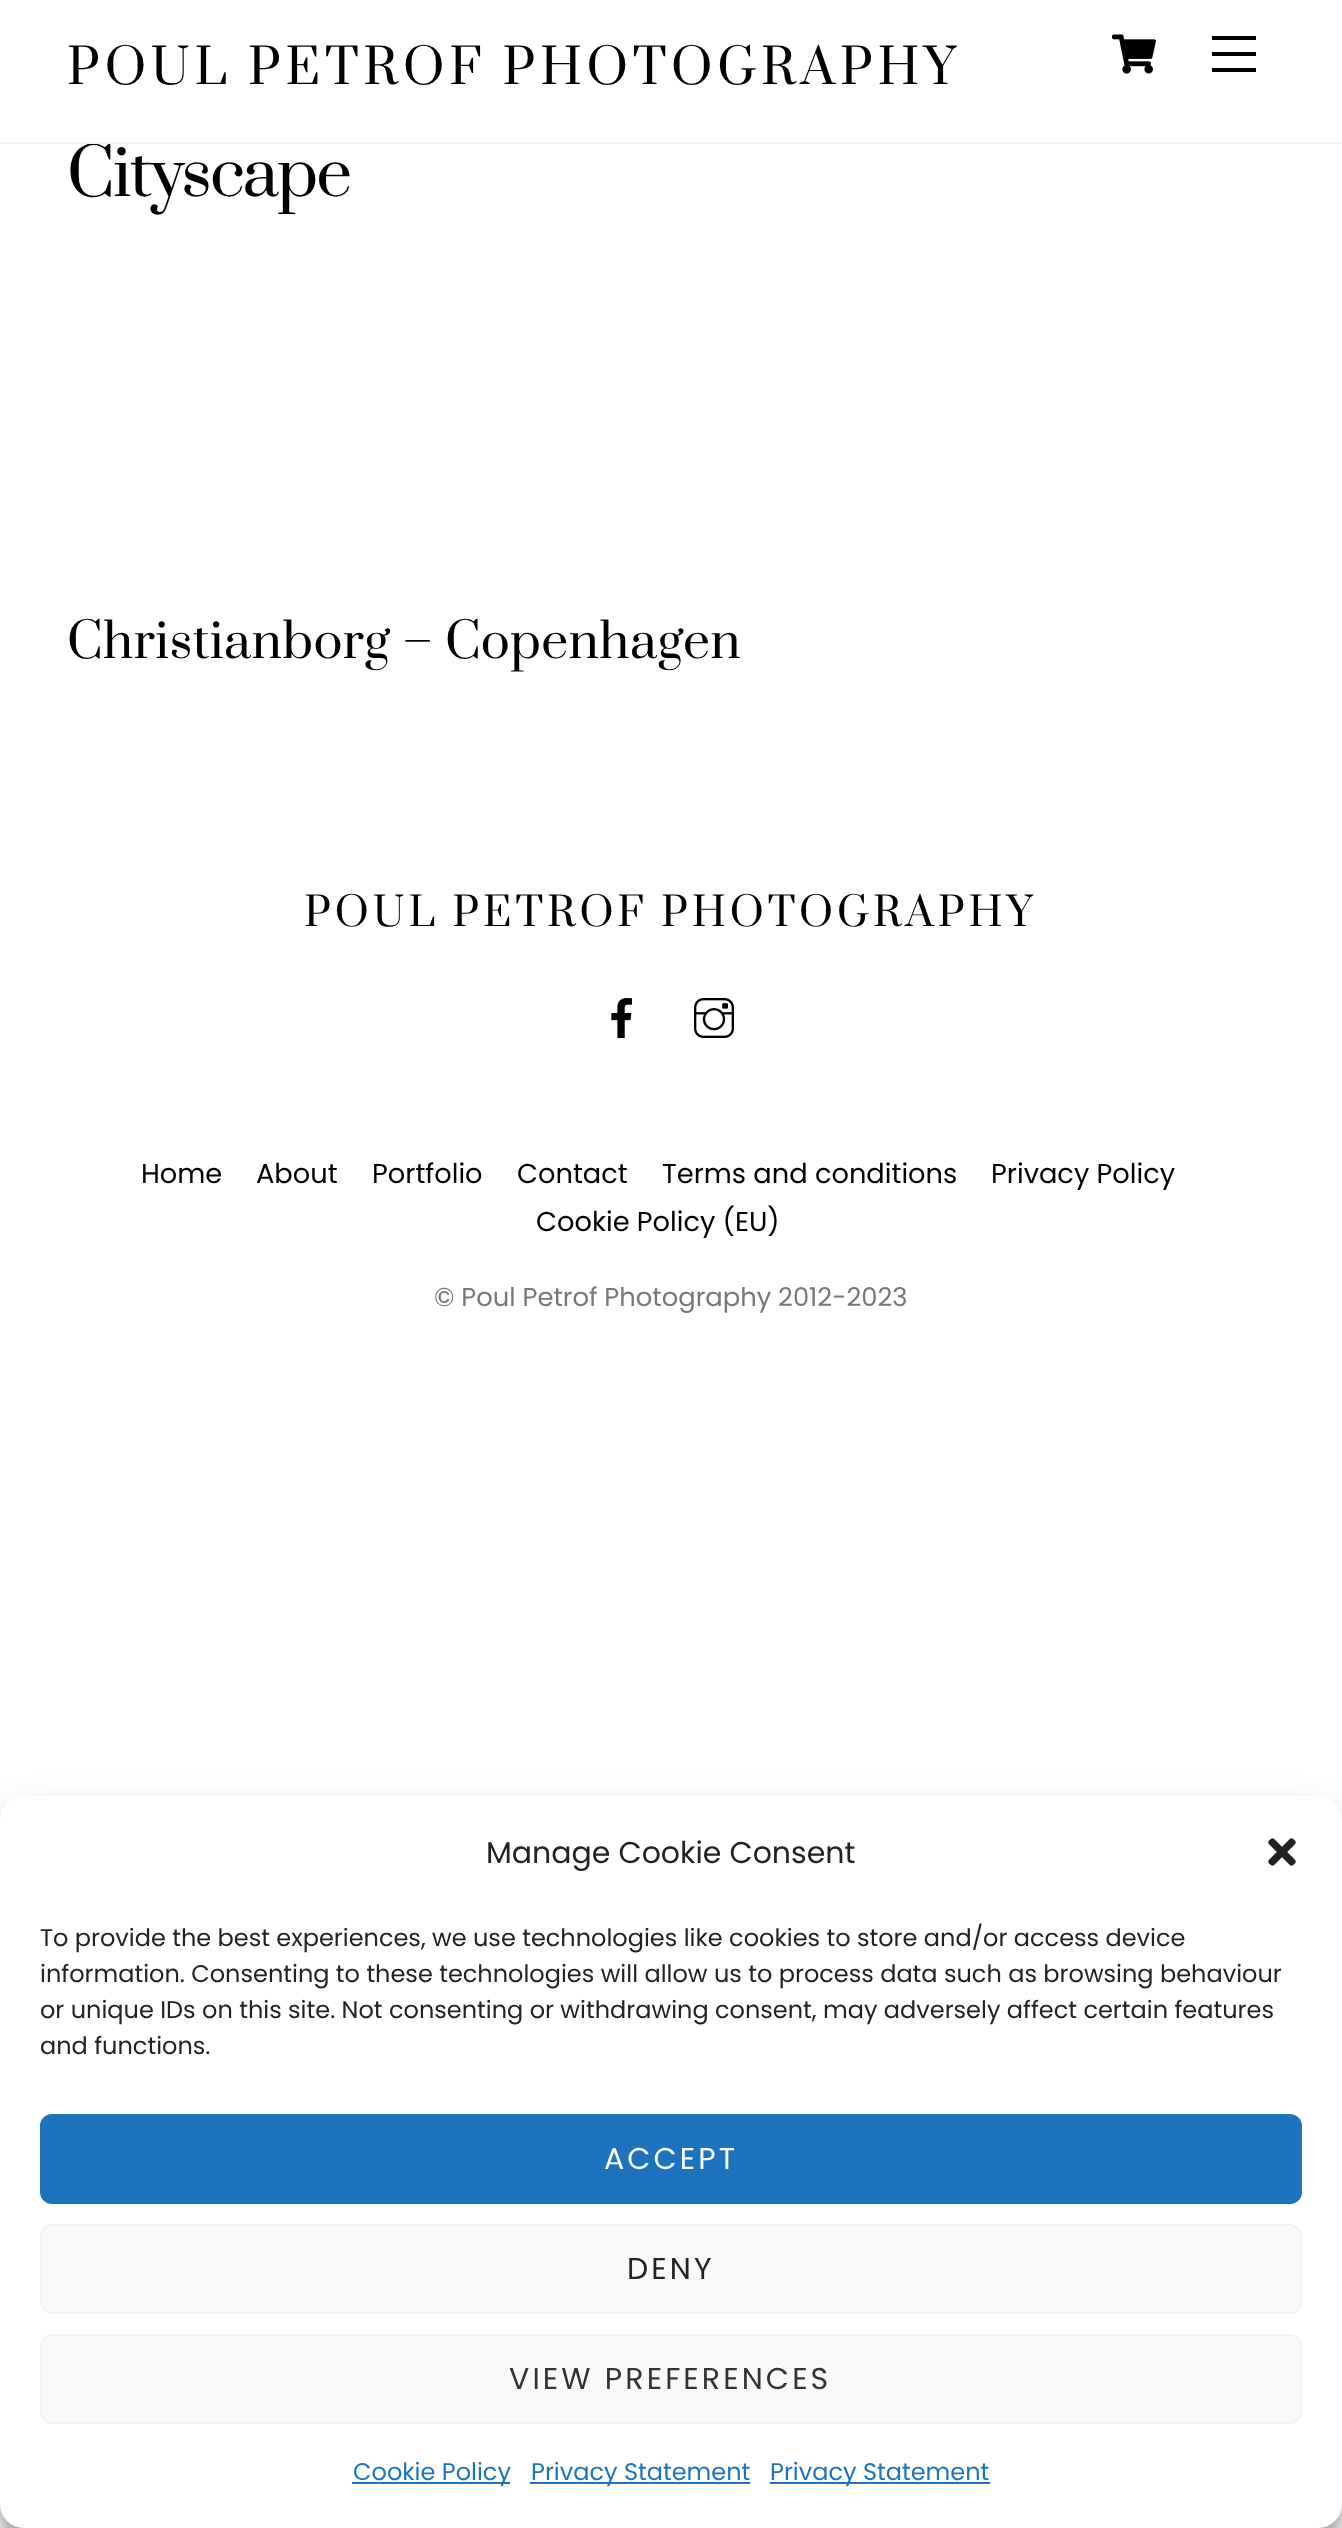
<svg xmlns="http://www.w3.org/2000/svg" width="1342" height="2528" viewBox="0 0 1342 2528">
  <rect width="100%" height="100%" fill="rgb(255,255,255)"/>
  <text x="67" y="196" font-family="Prata" font-size="64" letter-spacing="-1.75" fill="rgb(0,0,0)">Cityscape</text>
  <rect x="0" y="142" width="1342" height="2" fill="rgb(242,242,242)"/>
  <text x="67" y="84" font-family="Prata" font-size="48" letter-spacing="4.8" fill="rgb(0,0,0)">POUL PETROF PHOTOGRAPHY</text>
  <image x="1112" y="34" width="44" height="40" href="pic1.png"/>
  <rect x="1212" y="68" width="44" height="4" fill="rgb(0,0,0)"/>
  <rect x="1212" y="36" width="44" height="4" fill="rgb(0,0,0)"/>
  <rect x="1212" y="52" width="44" height="4" fill="rgb(0,0,0)"/>
  <text x="67" y="658" font-family="Prata" font-size="48" letter-spacing="0.35" fill="rgb(0,0,0)">Christianborg – Copenhagen</text>
  <text x="304" y="926" font-family="Prata" font-size="39.4" letter-spacing="3.9" fill="rgb(0,0,0)">POUL PETROF PHOTOGRAPHY</text>
  <image x="611" y="998" width="21" height="40" href="pic2.png"/>
  <image x="694" y="998" width="40" height="40" href="pic3.png"/>
  <g font-family="Poppins" font-size="27.25" fill="rgb(0,0,0)">
    <text x="141" y="1183">Home</text>
    <text x="256" y="1183">About</text>
    <text x="372" y="1183">Portfolio</text>
    <text x="517" y="1183">Contact</text>
    <text x="662" y="1183">Terms and conditions</text>
    <text x="991" y="1183">Privacy Policy</text>
    <text x="536" y="1231">Cookie Policy (EU)</text>
  </g>
  <text x="434" y="1306" font-family="Poppins" font-size="25.8" fill="rgb(119,119,119)">© Poul Petrof Photography 2012-2023</text>
  <rect x="0" y="1808" width="1342" height="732" rx="24" fill="rgba(0,0,0,0.23)" filter="blur(6px)"/>
  <rect x="0" y="1816" width="1342" height="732" rx="24" fill="rgba(0,0,0,0.19)" filter="blur(20px)"/>
  <rect x="0" y="1796" width="1342" height="732" rx="24" fill="rgb(255,255,255)"/>
  <text x="486" y="1863" font-family="Poppins" font-size="30" fill="rgb(34,34,34)">Manage Cookie Consent</text>
  <image x="1268" y="1838" width="28" height="28" href="pic4.png"/>
  <g font-family="Poppins" font-size="24" fill="rgb(34,34,34)">
    <text>
      <tspan x="40" y="1946">To provide the best experiences, we use technologies like cookies to store and/or access device</tspan>
      <tspan x="40" y="1982">information. Consenting to these technologies will allow us to process data such as browsing behaviour</tspan>
      <tspan x="40" y="2018">or unique IDs on this site. Not consenting or withdrawing consent, may adversely affect certain features</tspan>
      <tspan x="40" y="2054">and functions.</tspan>
    </text>
  </g>
  <rect x="41" y="2115" width="1260" height="88" rx="11" fill="rgb(30,115,190)" stroke="rgb(30,115,190)" stroke-width="2"/>
  <text x="604" y="2169" font-family="Poppins" font-size="30" letter-spacing="3.1" fill="rgb(255,255,255)">ACCEPT</text>
  <rect x="41" y="2225" width="1260" height="88" rx="11" fill="rgb(249,249,249)" stroke="rgb(242,242,242)" stroke-width="2"/>
  <text x="627" y="2279" font-family="Poppins" font-size="30" letter-spacing="3.1" fill="rgb(34,34,34)">DENY</text>
  <rect x="41" y="2335" width="1260" height="88" rx="11" fill="rgb(249,249,249)" stroke="rgb(242,242,242)" stroke-width="2"/>
  <text x="509" y="2389" font-family="Poppins" font-size="30" letter-spacing="3.1" fill="rgb(51,51,51)">VIEW PREFERENCES</text>
  <rect x="352" y="2482" width="158" height="2" fill="rgb(30,115,190)"/>
  <text x="353" y="2480" font-family="Poppins" font-size="24" fill="rgb(30,115,190)">Cookie Policy</text>
  <rect x="530" y="2482" width="220" height="2" fill="rgb(30,115,190)"/>
  <text x="531" y="2480" font-family="Poppins" font-size="24" fill="rgb(30,115,190)">Privacy Statement</text>
  <rect x="770" y="2482" width="220" height="2" fill="rgb(30,115,190)"/>
  <text x="770" y="2480" font-family="Poppins" font-size="24" fill="rgb(30,115,190)">Privacy Statement</text>
</svg>
